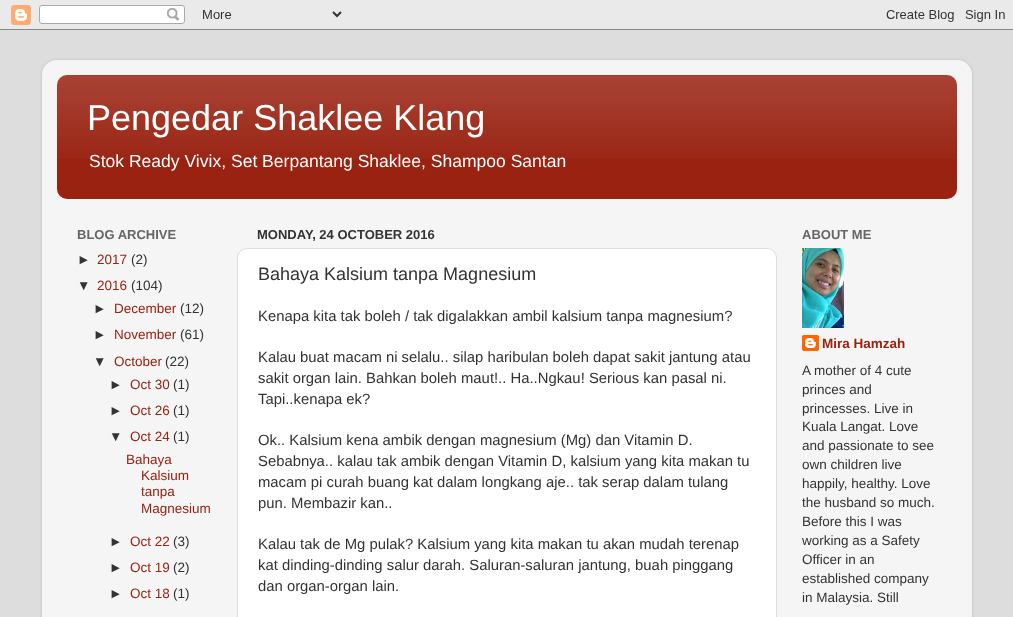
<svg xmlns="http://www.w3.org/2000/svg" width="1013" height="617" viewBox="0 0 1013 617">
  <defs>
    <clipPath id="clip1"><path d="M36 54H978V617H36ZM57 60H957C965.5 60 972 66.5 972 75V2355C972 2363.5 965.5 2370 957 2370H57C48.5 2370 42 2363.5 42 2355V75C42 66.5 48.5 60 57 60Z" clip-rule="evenodd"/></clipPath>
  </defs>
  <rect width="100%" height="100%" fill="rgb(221,221,221)"/>
  <image x="0" y="0" width="1013" height="30" href="pic1.png"/>
  <g clip-path="url(#clip1)">
    <rect x="42" y="60" width="930" height="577" rx="15" fill="rgba(0,0,0,0.15)" filter="blur(1.5px)"/>
  </g>
  <image x="42" y="60" width="930" height="557" href="pic2.png"/>
  <rect x="57" y="75" width="900" height="124" rx="10" fill="rgb(153,34,17)"/>
  <image x="57" y="75" width="900" height="84" href="pic3.png"/>
  <text x="87" y="130" font-family="Liberation Sans" font-size="36" fill="rgb(255,255,255)">Pengedar Shaklee Klang</text>
  <text x="89" y="167" font-family="Liberation Sans" font-size="17.55" fill="rgb(255,255,255)">Stok Ready Vivix, Set Berpantang Shaklee, Shampoo Santan</text>
  <text x="77" y="239" font-family="Liberation Sans" font-size="13" font-weight="bold" fill="rgb(102,102,102)">BLOG ARCHIVE</text>
  <text x="77" y="264" font-family="Liberation Sans" font-size="13.5" fill="rgb(51,51,51)">►</text>
  <text x="97" y="264" font-family="Liberation Sans" font-size="13.5" fill="rgb(153,34,17)">2017</text>
  <g font-family="Liberation Sans" font-size="13.5" fill="rgb(51,51,51)">
    <text x="131" y="264">(2)</text>
    <text x="77" y="290">▼</text>
  </g>
  <text x="97" y="290" font-family="Liberation Sans" font-size="13.5" fill="rgb(153,34,17)">2016</text>
  <g font-family="Liberation Sans" font-size="13.5" fill="rgb(51,51,51)">
    <text x="131" y="290">(104)</text>
    <text x="93" y="313">►</text>
  </g>
  <text x="114" y="313" font-family="Liberation Sans" font-size="13.5" fill="rgb(153,34,17)">December</text>
  <g font-family="Liberation Sans" font-size="13.5" fill="rgb(51,51,51)">
    <text x="180" y="313">(12)</text>
    <text x="93" y="339">►</text>
  </g>
  <text x="114" y="339" font-family="Liberation Sans" font-size="13.5" fill="rgb(153,34,17)">November</text>
  <g font-family="Liberation Sans" font-size="13.5" fill="rgb(51,51,51)">
    <text x="180" y="339">(61)</text>
    <text x="93" y="366">▼</text>
  </g>
  <text x="114" y="366" font-family="Liberation Sans" font-size="13.5" fill="rgb(153,34,17)">October</text>
  <g font-family="Liberation Sans" font-size="13.5" fill="rgb(51,51,51)">
    <text x="165" y="366">(22)</text>
    <text x="109" y="389">►</text>
  </g>
  <text x="130" y="389" font-family="Liberation Sans" font-size="13.5" fill="rgb(153,34,17)">Oct 30</text>
  <g font-family="Liberation Sans" font-size="13.5" fill="rgb(51,51,51)">
    <text x="173" y="389">(1)</text>
    <text x="109" y="415">►</text>
  </g>
  <text x="130" y="415" font-family="Liberation Sans" font-size="13.5" fill="rgb(153,34,17)">Oct 26</text>
  <g font-family="Liberation Sans" font-size="13.5" fill="rgb(51,51,51)">
    <text x="173" y="415">(1)</text>
    <text x="109" y="441">▼</text>
  </g>
  <text x="130" y="441" font-family="Liberation Sans" font-size="13.5" fill="rgb(153,34,17)">Oct 24</text>
  <text x="173" y="441" font-family="Liberation Sans" font-size="13.5" fill="rgb(51,51,51)">(1)</text>
  <g font-family="Liberation Sans" font-size="13.5" fill="rgb(153,34,17)">
    <text x="126" y="464">Bahaya</text>
    <text>
      <tspan x="141" y="480">Kalsium</tspan>
      <tspan x="141" y="496">tanpa</tspan>
      <tspan x="141" y="513">Magnesium</tspan>
    </text>
  </g>
  <text x="109" y="546" font-family="Liberation Sans" font-size="13.5" fill="rgb(51,51,51)">►</text>
  <text x="130" y="546" font-family="Liberation Sans" font-size="13.5" fill="rgb(153,34,17)">Oct 22</text>
  <g font-family="Liberation Sans" font-size="13.5" fill="rgb(51,51,51)">
    <text x="173" y="546">(3)</text>
    <text x="109" y="572">►</text>
  </g>
  <text x="130" y="572" font-family="Liberation Sans" font-size="13.5" fill="rgb(153,34,17)">Oct 19</text>
  <g font-family="Liberation Sans" font-size="13.5" fill="rgb(51,51,51)">
    <text x="173" y="572">(2)</text>
    <text x="109" y="598">►</text>
  </g>
  <text x="130" y="598" font-family="Liberation Sans" font-size="13.5" fill="rgb(153,34,17)">Oct 18</text>
  <text x="173" y="598" font-family="Liberation Sans" font-size="13.5" fill="rgb(51,51,51)">(1)</text>
  <text x="257" y="239" font-family="Liberation Sans" font-size="13" font-weight="bold" fill="rgb(51,51,51)">MONDAY, 24 OCTOBER 2016</text>
  <rect x="237.5" y="248.5" width="539" height="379" rx="9.5" fill="rgb(255,255,255)" stroke="rgb(221,221,221)"/>
  <text x="258" y="280" font-family="Liberation Sans" font-size="18" fill="rgb(51,51,51)">Bahaya Kalsium tanpa Magnesium</text>
  <g font-family="Liberation Sans" font-size="14.85" fill="rgb(51,51,51)">
    <text x="258" y="321">Kenapa kita tak boleh / tak digalakkan ambil kalsium tanpa magnesium?</text>
    <text>
      <tspan x="258" y="362">Kalau buat macam ni selalu.. silap haribulan boleh dapat sakit jantung atau</tspan>
      <tspan x="258" y="383">sakit organ lain. Bahkan boleh maut!.. Ha..Ngkau! Serious kan pasal ni.</tspan>
      <tspan x="258" y="404">Tapi..kenapa ek?</tspan>
    </text>
    <text>
      <tspan x="258" y="445">Ok.. Kalsium kena ambik dengan magnesium (Mg) dan Vitamin D.</tspan>
      <tspan x="258" y="466">Sebabnya.. kalau tak ambik dengan Vitamin D, kalsium yang kita makan tu</tspan>
      <tspan x="258" y="487">macam pi curah buang kat dalam longkang aje.. tak serap dalam tulang</tspan>
      <tspan x="258" y="508">pun. Membazir kan..</tspan>
    </text>
    <text>
      <tspan x="258" y="549">Kalau tak de Mg pulak? Kalsium yang kita makan tu akan mudah terenap</tspan>
      <tspan x="258" y="570">kat dinding-dinding salur darah. Saluran-saluran jantung, buah pinggang</tspan>
      <tspan x="258" y="591">dan organ-organ lain.</tspan>
    </text>
  </g>
  <text x="802" y="239" font-family="Liberation Sans" font-size="13" font-weight="bold" fill="rgb(102,102,102)">ABOUT ME</text>
  <image x="802" y="248" width="42" height="80" href="pic4.png"/>
  <image x="802" y="335" width="17" height="16" href="pic5.png"/>
  <text x="822" y="348" font-family="Liberation Sans" font-size="13.5" font-weight="bold" fill="rgb(153,34,17)">Mira Hamzah</text>
  <g font-family="Liberation Sans" font-size="13.5" fill="rgb(51,51,51)">
    <text>
      <tspan x="802" y="375">A mother of 4 cute</tspan>
      <tspan x="802" y="394">princes and</tspan>
      <tspan x="802" y="413">princesses. Live in</tspan>
      <tspan x="802" y="431">Kuala Langat. Love</tspan>
      <tspan x="802" y="450">and passionate to see</tspan>
      <tspan x="802" y="469">own children live</tspan>
      <tspan x="802" y="488">happily, healthy. Love</tspan>
      <tspan x="802" y="507">the husband so much.</tspan>
      <tspan x="802" y="526">Before this I was</tspan>
      <tspan x="802" y="545">working as a Safety</tspan>
      <tspan x="802" y="564">Officer in an</tspan>
      <tspan x="802" y="583">established company</tspan>
      <tspan x="802" y="602">in Malaysia. Still</tspan>
    </text>
  </g>
</svg>
